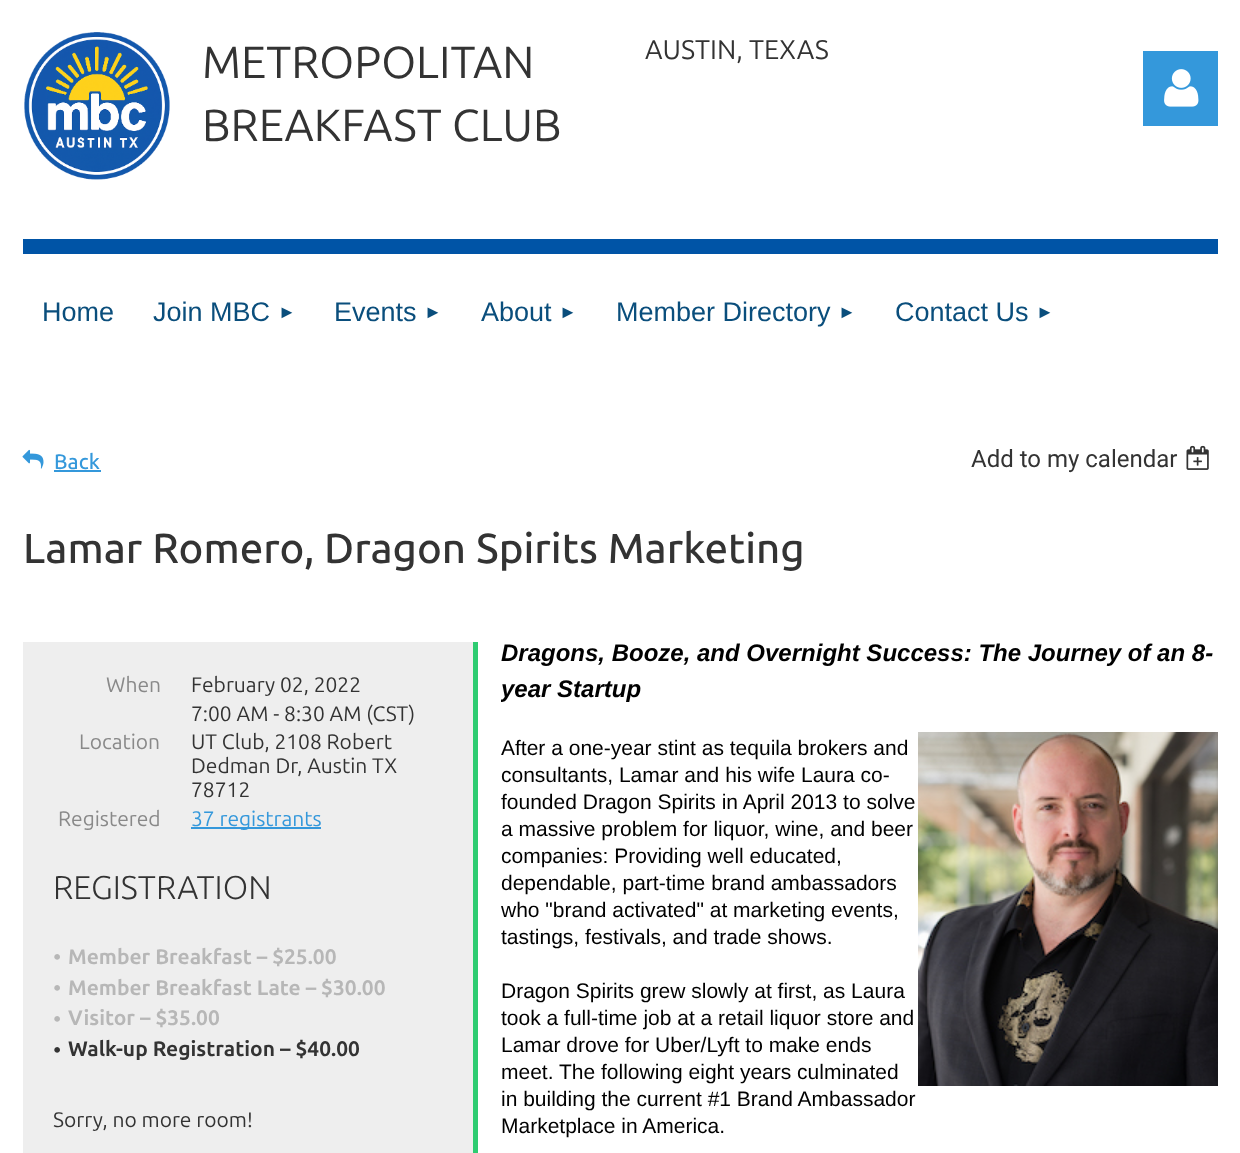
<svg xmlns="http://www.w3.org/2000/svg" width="1240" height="1153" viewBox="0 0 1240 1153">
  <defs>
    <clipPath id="clip1"><rect x="501" y="633" width="717" height="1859"/></clipPath>
  </defs>
  <rect width="100%" height="100%" fill="rgb(255,255,255)"/>
  <image x="24" y="32" width="146" height="148" href="pic1.png"/>
  <g font-family="Ubuntu" font-size="45" fill="rgb(51,51,51)">
    <text>
      <tspan x="202" y="78">METROPOLITAN</tspan>
      <tspan x="202" y="141">BREAKFAST CLUB</tspan>
    </text>
  </g>
  <text x="645" y="59" font-family="Ubuntu" font-size="27" fill="rgb(51,51,51)">AUSTIN, TEXAS</text>
  <rect x="1143" y="51" width="75" height="75" fill="rgb(52,152,219)"/>
  <image x="1164" y="69" width="35" height="38" href="pic2.png"/>
  <rect x="23" y="239" width="1195" height="15" fill="rgb(0,84,166)"/>
  <g font-family="Liberation Sans" font-size="27" fill="rgb(10,78,124)">
    <text x="42" y="321">Home</text>
    <text x="153" y="321">Join MBC</text>
  </g>
  <text x="278" y="318" font-family="Liberation Sans" font-size="18" fill="rgb(10,78,124)">►</text>
  <text x="334" y="321" font-family="Liberation Sans" font-size="27" fill="rgb(10,78,124)">Events</text>
  <text x="424" y="318" font-family="Liberation Sans" font-size="18" fill="rgb(10,78,124)">►</text>
  <text x="481" y="321" font-family="Liberation Sans" font-size="27" fill="rgb(10,78,124)">About</text>
  <text x="559" y="318" font-family="Liberation Sans" font-size="18" fill="rgb(10,78,124)">►</text>
  <text x="616" y="321" font-family="Liberation Sans" font-size="27" fill="rgb(10,78,124)">Member Directory</text>
  <text x="838" y="318" font-family="Liberation Sans" font-size="18" fill="rgb(10,78,124)">►</text>
  <text x="895" y="321" font-family="Liberation Sans" font-size="27" fill="rgb(10,78,124)">Contact Us</text>
  <text x="1036" y="318" font-family="Liberation Sans" font-size="18" fill="rgb(10,78,124)">►</text>
  <image x="22" y="449" width="22" height="20" href="pic3.png"/>
  <text x="54" y="469" font-family="Ubuntu" font-size="21" font-weight="500" fill="rgb(52,152,219)">Back</text>
  <rect x="54" y="470" width="47" height="2" fill="rgb(52,152,219)"/>
  <text x="971" y="467" font-family="Roboto" font-size="24" fill="rgb(51,51,51)">Add to my calendar</text>
  <image x="1186" y="445" width="23" height="25" href="pic4.png"/>
  <text x="23" y="563" font-family="Ubuntu" font-size="42" font-weight="500" fill="rgb(51,51,51)">Lamar Romero, Dragon Spirits Marketing</text>
  <rect x="23" y="642" width="450" height="511" fill="rgb(238,238,238)"/>
  <rect x="473" y="642" width="5" height="511" fill="rgb(46,204,113)"/>
  <text x="106" y="692" font-family="Ubuntu" font-size="21" fill="rgb(137,137,137)">When</text>
  <g font-family="Ubuntu" font-size="21" fill="rgb(51,51,51)">
    <text>
      <tspan x="191" y="692">February 02, 2022</tspan>
      <tspan x="191" y="721">7:00 AM - 8:30 AM (CST)</tspan>
    </text>
  </g>
  <text x="79" y="749" font-family="Ubuntu" font-size="21" fill="rgb(137,137,137)">Location</text>
  <g font-family="Ubuntu" font-size="21" fill="rgb(51,51,51)">
    <text>
      <tspan x="191" y="749">UT Club, 2108 Robert</tspan>
      <tspan x="191" y="773">Dedman Dr, Austin TX</tspan>
      <tspan x="191" y="797">78712</tspan>
    </text>
  </g>
  <text x="58" y="826" font-family="Ubuntu" font-size="21" fill="rgb(137,137,137)">Registered</text>
  <rect x="191" y="827" width="130" height="2" fill="rgb(52,152,219)"/>
  <text x="191" y="826" font-family="Ubuntu" font-size="21" fill="rgb(52,152,219)">37 registrants</text>
  <text x="53" y="899" font-family="Ubuntu" font-size="33" font-weight="300" fill="rgb(51,51,51)">REGISTRATION</text>
  <text x="53" y="965" font-family="Ubuntu" font-size="23" fill="rgb(183,183,183)">•</text>
  <text x="68" y="964" font-family="Ubuntu" font-size="21" font-weight="bold" fill="rgb(183,183,183)">Member Breakfast – $25.00</text>
  <text x="53" y="996" font-family="Ubuntu" font-size="23" fill="rgb(183,183,183)">•</text>
  <text x="68" y="995" font-family="Ubuntu" font-size="21" font-weight="bold" fill="rgb(183,183,183)">Member Breakfast Late – $30.00</text>
  <text x="53" y="1027" font-family="Ubuntu" font-size="23" fill="rgb(183,183,183)">•</text>
  <text x="68" y="1025" font-family="Ubuntu" font-size="21" font-weight="bold" fill="rgb(183,183,183)">Visitor – $35.00</text>
  <text x="53" y="1058" font-family="Ubuntu" font-size="23" fill="rgb(51,51,51)">•</text>
  <text x="68" y="1056" font-family="Ubuntu" font-size="21" font-weight="bold" fill="rgb(51,51,51)">Walk-up Registration – $40.00</text>
  <text x="53" y="1127" font-family="Ubuntu" font-size="21" fill="rgb(51,51,51)">Sorry, no more room!</text>
  <text x="501" y="661" font-family="Liberation Sans" font-size="24" font-weight="bold" font-style="italic" fill="rgb(0,0,0)">Dragons, Booze, and Overnight Success: The Journey of an 8-</text>
  <g clip-path="url(#clip1)">
    <text x="501" y="697" font-family="Liberation Sans" font-size="24" font-weight="bold" font-style="italic" fill="rgb(0,0,0)">year Startup</text>
  </g>
  <g font-family="Liberation Sans" font-size="21" fill="rgb(0,0,0)">
    <text>
      <tspan x="501" y="755">After a one-year stint as tequila brokers and</tspan>
      <tspan x="501" y="782">consultants, Lamar and his wife Laura co-</tspan>
      <tspan x="501" y="809">founded Dragon Spirits in April 2013 to solve</tspan>
      <tspan x="501" y="836">a massive problem for liquor, wine, and beer</tspan>
      <tspan x="501" y="863">companies: Providing well educated,</tspan>
      <tspan x="501" y="890">dependable, part-time brand ambassadors</tspan>
      <tspan x="501" y="917">who "brand activated" at marketing events,</tspan>
      <tspan x="501" y="944">tastings, festivals, and trade shows.</tspan>
    </text>
  </g>
  <image x="918" y="732" width="300" height="354" href="pic5.png"/>
  <g font-family="Liberation Sans" font-size="21" fill="rgb(0,0,0)">
    <text>
      <tspan x="501" y="998">Dragon Spirits grew slowly at first, as Laura</tspan>
      <tspan x="501" y="1025">took a full-time job at a retail liquor store and</tspan>
      <tspan x="501" y="1052">Lamar drove for Uber/Lyft to make ends</tspan>
      <tspan x="501" y="1079">meet. The following eight years culminated</tspan>
      <tspan x="501" y="1106">in building the current #1 Brand Ambassador</tspan>
      <tspan x="501" y="1133">Marketplace in America.</tspan>
    </text>
  </g>
</svg>
